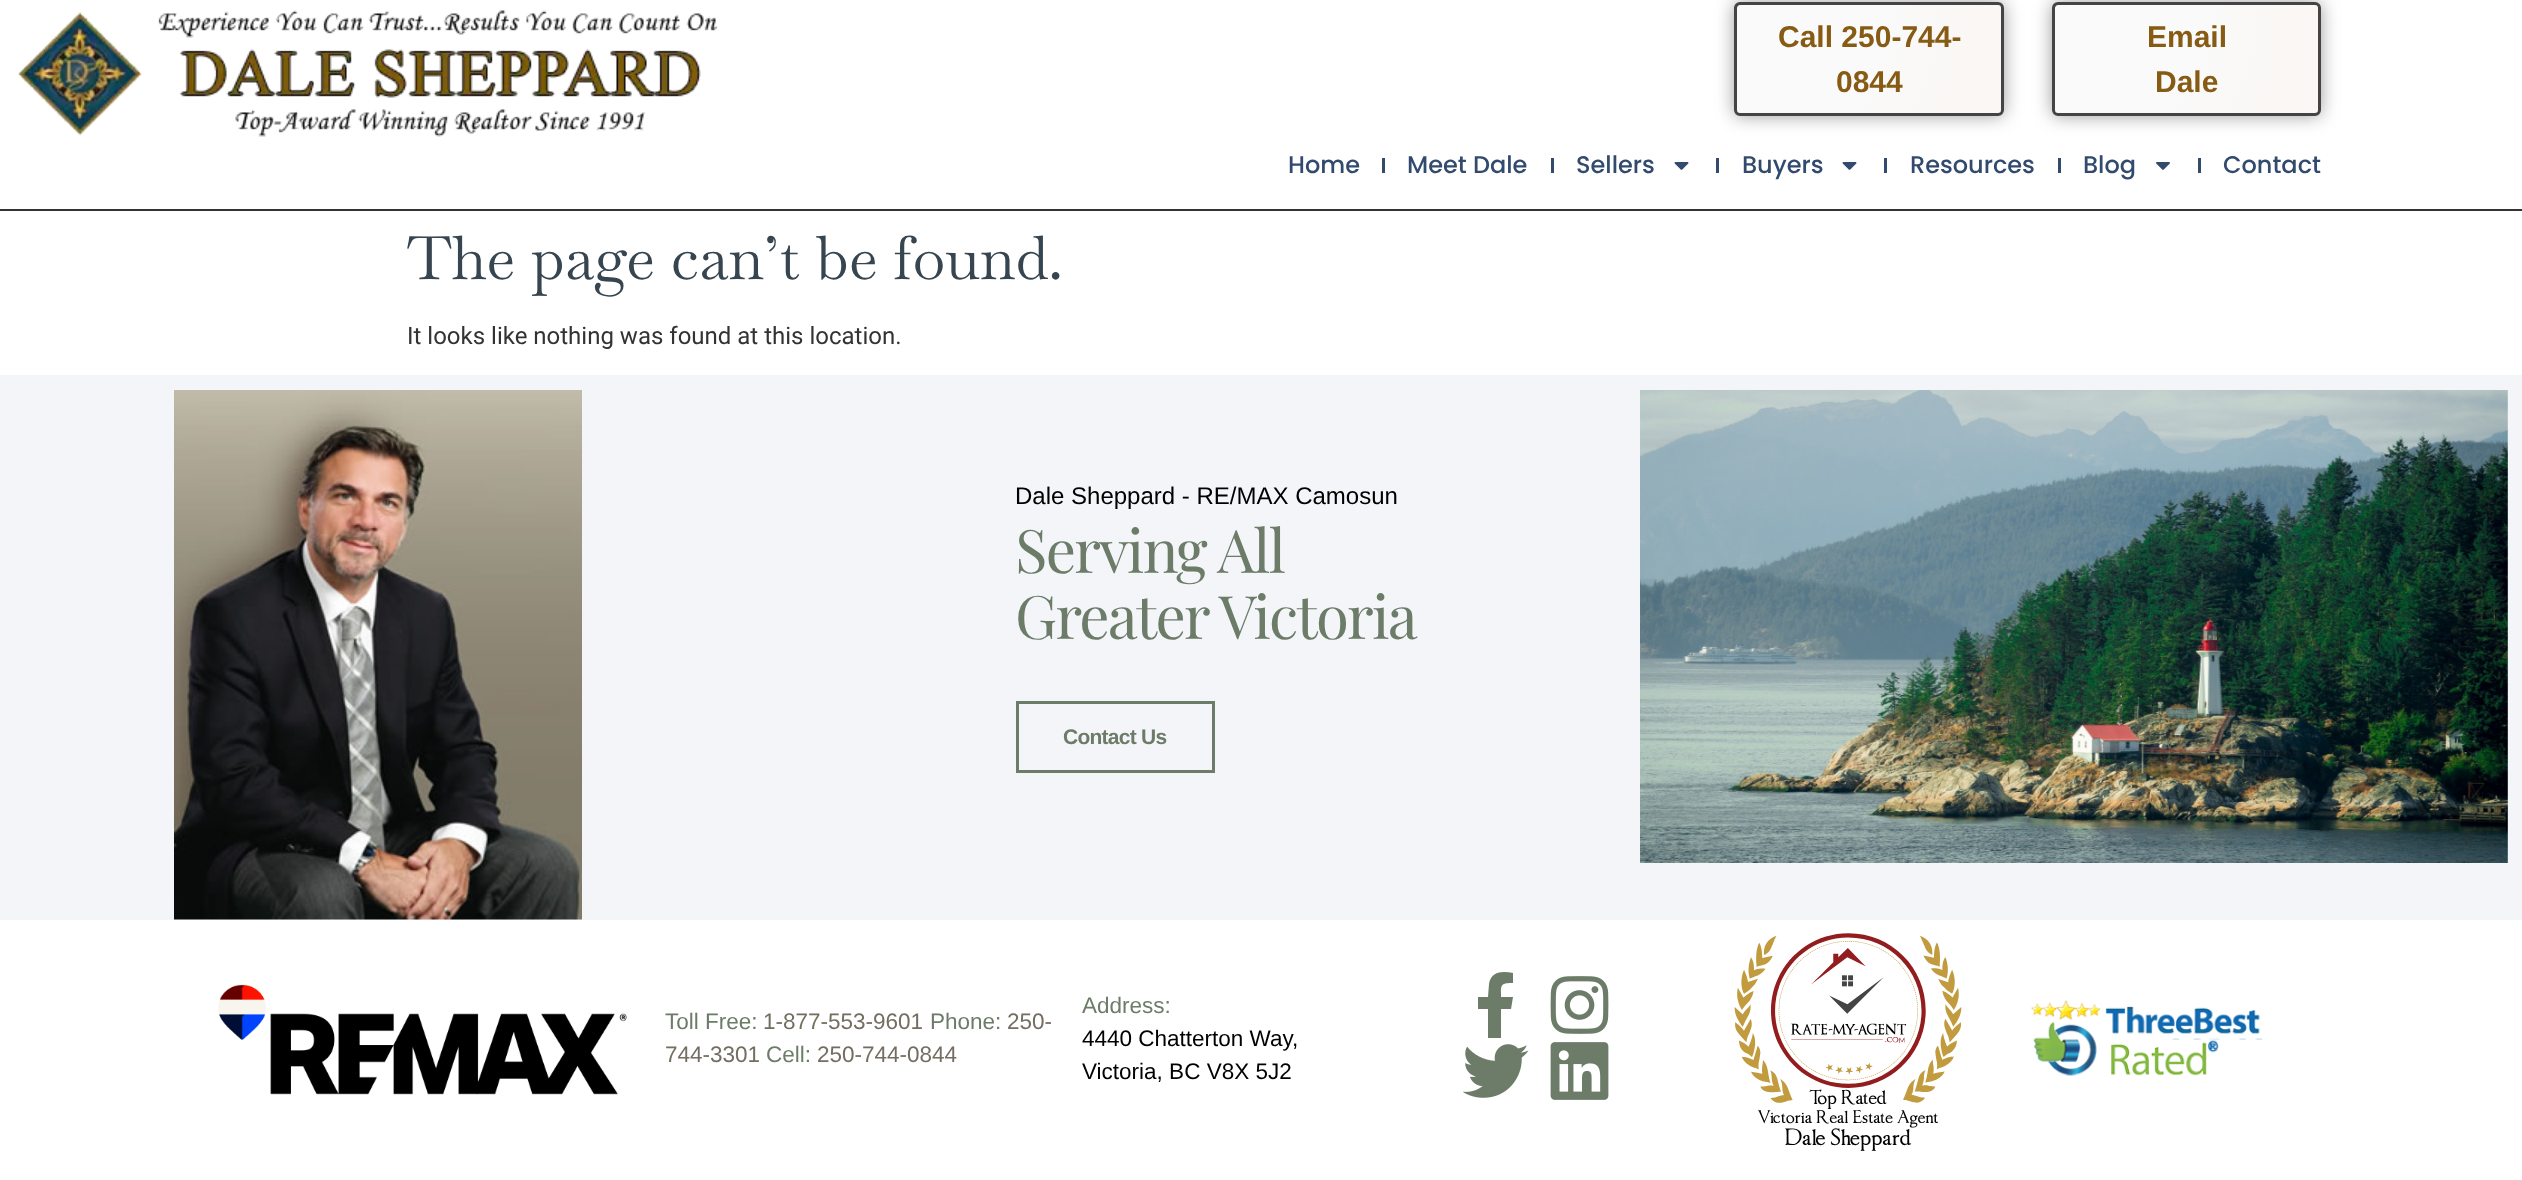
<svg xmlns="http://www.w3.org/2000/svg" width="2522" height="1180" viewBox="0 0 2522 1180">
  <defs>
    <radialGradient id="g1" gradientUnits="userSpaceOnUse" cx="1777" cy="21" r="242"><stop offset="0.45" stop-color="rgb(250,250,250)"/><stop offset="0.84" stop-color="rgb(250,247,244)"/></radialGradient>
    <radialGradient id="g2" gradientUnits="userSpaceOnUse" cx="2094" cy="21" r="241"><stop offset="0.45" stop-color="rgb(250,250,250)"/><stop offset="0.84" stop-color="rgb(250,247,244)"/></radialGradient>
  </defs>
  <rect width="100%" height="100%" fill="rgb(255,255,255)"/>
  <rect x="0" y="209" width="2522" height="2" fill="rgb(51,51,51)"/>
  <image x="18" y="10" width="700" height="127" href="pic1.png"/>
  <rect x="1734" y="2" width="270" height="114" rx="6" fill="rgba(60,60,60,0.5)" filter="blur(9px)"/>
  <rect x="1737" y="5" width="264" height="108" fill="url(#g1)"/>
  <rect x="1735.5" y="3.5" width="267" height="111" rx="4.5" fill="none" stroke="rgb(68,68,68)" stroke-width="3"/>
  <g font-family="Liberation Sans" font-size="30" font-weight="bold" fill="rgb(135,91,20)">
    <text x="1778" y="47">Call 250-744-</text>
    <text x="1836" y="92">0844</text>
  </g>
  <rect x="2052" y="2" width="269" height="114" rx="6" fill="rgba(60,60,60,0.5)" filter="blur(9px)"/>
  <rect x="2055" y="5" width="263" height="108" fill="url(#g2)"/>
  <rect x="2053.5" y="3.5" width="266" height="111" rx="4.5" fill="none" stroke="rgb(68,68,68)" stroke-width="3"/>
  <g font-family="Liberation Sans" font-size="30" font-weight="bold" fill="rgb(135,91,20)">
    <text x="2147" y="47">Email</text>
    <text x="2155" y="92">Dale</text>
  </g>
  <text x="1288" y="173" font-family="Poppins" font-size="24" font-weight="500" fill="rgb(50,74,109)">Home</text>
  <rect x="1382" y="158" width="3" height="15" fill="rgb(50,74,109)"/>
  <text x="1407" y="173" font-family="Poppins" font-size="24" font-weight="500" fill="rgb(50,74,109)">Meet Dale</text>
  <rect x="1551" y="158" width="3" height="15" fill="rgb(50,74,109)"/>
  <text x="1576" y="173" font-family="Poppins" font-size="24" font-weight="500" fill="rgb(50,74,109)">Sellers</text>
  <image x="1674" y="162" width="15" height="8" href="pic2.png"/>
  <rect x="1716" y="158" width="3" height="15" fill="rgb(50,74,109)"/>
  <text x="1742" y="173" font-family="Poppins" font-size="24" font-weight="500" fill="rgb(50,74,109)">Buyers</text>
  <image x="1842" y="162" width="15" height="8" href="pic2.png"/>
  <rect x="1884" y="158" width="3" height="15" fill="rgb(50,74,109)"/>
  <text x="1910" y="173" font-family="Poppins" font-size="24" font-weight="500" fill="rgb(50,74,109)">Resources</text>
  <rect x="2058" y="158" width="3" height="15" fill="rgb(50,74,109)"/>
  <text x="2083" y="173" font-family="Poppins" font-size="24" font-weight="500" fill="rgb(50,74,109)">Blog</text>
  <image x="2156" y="162" width="14" height="8" href="pic3.png"/>
  <rect x="2198" y="158" width="3" height="15" fill="rgb(50,74,109)"/>
  <text x="2223" y="173" font-family="Poppins" font-size="24" font-weight="500" fill="rgb(50,74,109)">Contact</text>
  <text x="407" y="279" font-family="Baskervville" font-size="60" fill="rgb(54,69,79)">The page can’t be found.</text>
  <text x="407" y="344" font-family="Roboto" font-size="24" fill="rgb(51,51,51)">It looks like nothing was found at this location.</text>
  <rect x="0" y="375" width="2522" height="545" fill="rgb(243,245,248)"/>
  <image x="174" y="390" width="408" height="530" href="pic4.png"/>
  <text x="1015" y="504" font-family="Liberation Sans" font-size="24" fill="rgb(0,0,0)">Dale Sheppard - RE/MAX Camosun</text>
  <g font-family="Playfair Display" font-size="60" letter-spacing="-1.75" fill="rgb(108,124,105)">
    <text>
      <tspan x="1015" y="573">Serving All</tspan>
      <tspan x="1015" y="639">Greater Victoria</tspan>
    </text>
  </g>
  <rect x="1017.5" y="702.5" width="196" height="69" fill="none" stroke="rgb(108,124,105)" stroke-width="3"/>
  <text x="1063" y="744" font-family="Liberation Sans" font-size="21" font-weight="bold" letter-spacing="-0.75" fill="rgb(108,124,105)">Contact Us</text>
  <image x="1640" y="390" width="868" height="473" href="pic5.png"/>
  <image x="218" y="984" width="409" height="111" href="pic6.png"/>
  <text x="665" y="1029" font-family="Liberation Sans" font-size="22.5" fill="rgb(108,124,105)">Toll Free:</text>
  <text x="763" y="1029" font-family="Liberation Sans" font-size="22.5" fill="rgb(115,110,97)">1-877-553-9601</text>
  <text x="930" y="1029" font-family="Liberation Sans" font-size="22.5" fill="rgb(108,124,105)">Phone:</text>
  <g font-family="Liberation Sans" font-size="22.5" fill="rgb(115,110,97)">
    <text x="1007" y="1029">250-</text>
    <text x="665" y="1062">744-3301</text>
  </g>
  <text x="766" y="1062" font-family="Liberation Sans" font-size="22.5" fill="rgb(108,124,105)">Cell:</text>
  <text x="817" y="1062" font-family="Liberation Sans" font-size="22.5" fill="rgb(115,110,97)">250-744-0844</text>
  <text x="1082" y="1013" font-family="Liberation Sans" font-size="22.5" fill="rgb(108,124,105)">Address:</text>
  <g font-family="Liberation Sans" font-size="22.5" fill="rgb(0,0,0)">
    <text>
      <tspan x="1082" y="1046">4440 Chatterton Way,</tspan>
      <tspan x="1082" y="1079">Victoria, BC V8X 5J2</tspan>
    </text>
  </g>
  <path d="M1511 1009L1513 997H1501C1501 985 1500 983 1513 983V973C1503 971 1491 971 1489 984L1488 997H1478V1009H1488V1038H1501V1009Z" fill="rgb(108,124,105)"/>
  <image x="1550" y="976" width="59" height="58" href="pic7.png"/>
  <image x="1463" y="1044" width="66" height="54" href="pic8.png"/>
  <image x="1550" y="1042" width="59" height="58" href="pic9.png"/>
  <image x="1734" y="933" width="228" height="218" href="pic10.png"/>
  <image x="2031" y="1000" width="232" height="76" href="pic11.png"/>
</svg>
